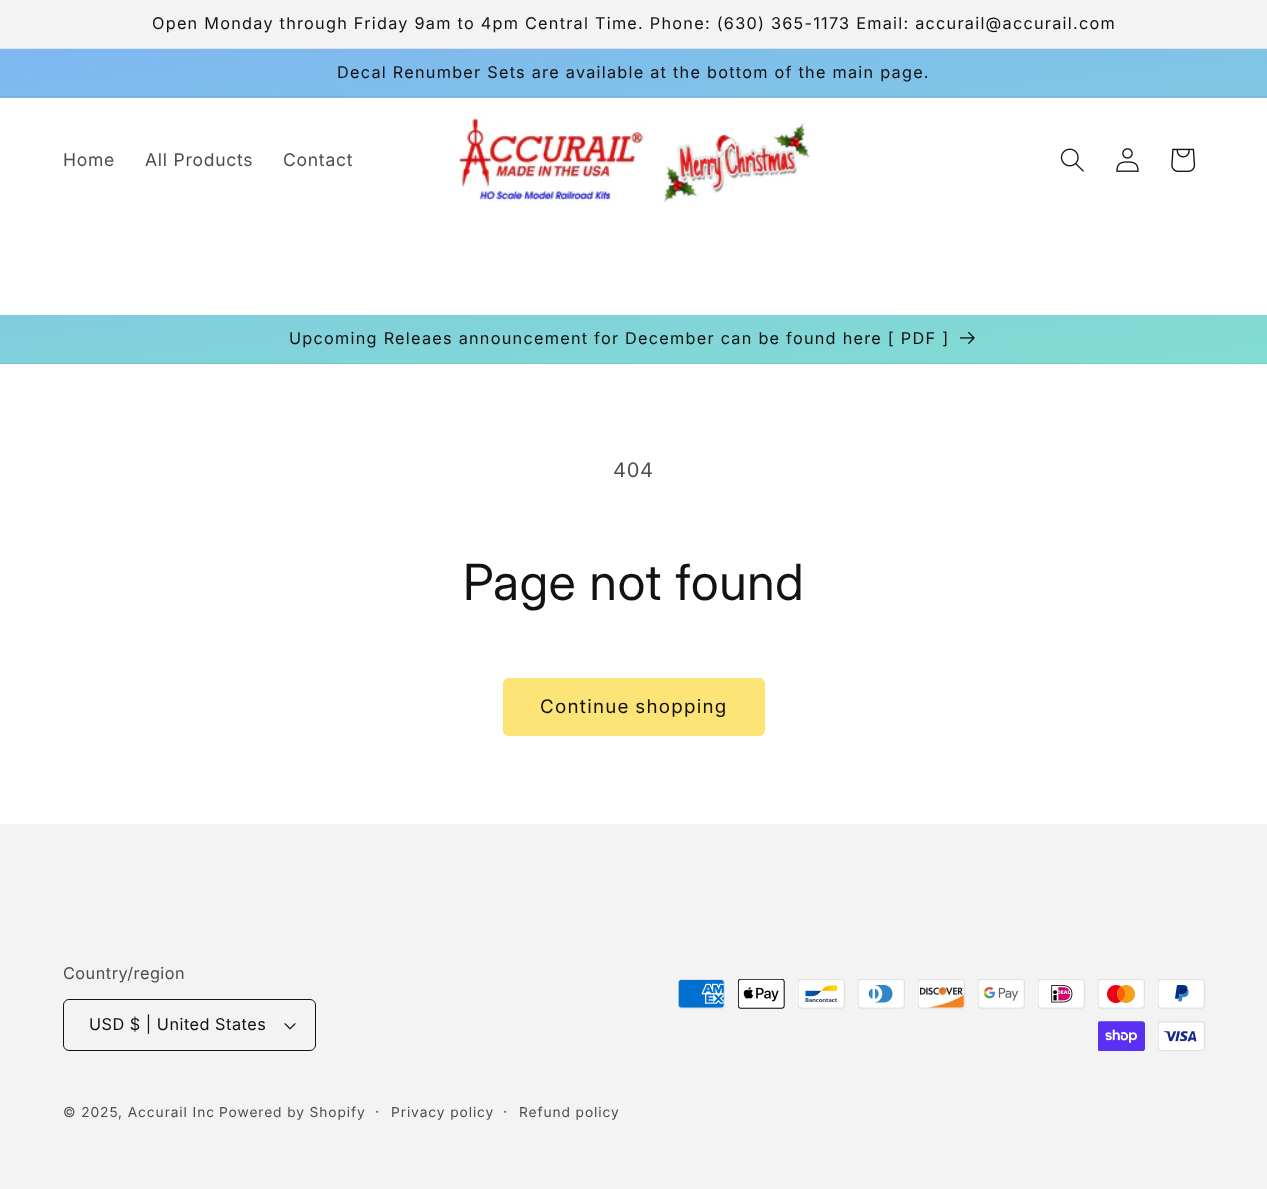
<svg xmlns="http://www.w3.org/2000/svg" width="1267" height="1189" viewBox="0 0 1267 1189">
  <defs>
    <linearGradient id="g1" gradientUnits="userSpaceOnUse" x1="715" y1="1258" x2="552" y2="-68"><stop offset="0" stop-color="rgb(126,179,245)"/><stop offset="0.4" stop-color="rgb(132,245,188)"/><stop offset="1" stop-color="rgb(126,179,245)"/></linearGradient>
    <linearGradient id="g2" gradientUnits="userSpaceOnUse" x1="715" y1="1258" x2="552" y2="-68"><stop offset="0" stop-color="rgb(117,166,227)"/><stop offset="0.4" stop-color="rgb(123,227,174)"/><stop offset="1" stop-color="rgb(117,166,227)"/></linearGradient>
  </defs>
  <rect width="100%" height="100%" fill="rgb(255,255,255)"/>
  <rect x="0" y="0" width="1267" height="48" fill="rgb(243,243,243)"/>
  <rect x="0" y="48" width="1267" height="1" fill="rgb(225,225,225)"/>
  <text x="152" y="29" font-family="Inter" font-size="16.25" letter-spacing="1.25" fill="rgb(18,18,18)">Open Monday through Friday 9am to 4pm Central Time. Phone: (630) 365-1173 Email: accurail@accurail.com</text>
  <rect x="0" y="49" width="1267" height="49" fill="url(#g1)"/>
  <rect x="0" y="96" width="1267" height="1" fill="url(#g2)"/>
  <text x="337" y="78" font-family="Inter" font-size="16.25" letter-spacing="1.25" fill="rgb(18,18,18)">Decal Renumber Sets are available at the bottom of the main page.</text>
  <g font-family="Inter" font-size="17.5" letter-spacing="0.75" fill="rgb(77,77,77)">
    <text x="63" y="166">Home</text>
    <text x="145" y="166">All Products</text>
    <text x="283" y="166">Contact</text>
  </g>
  <image x="456" y="113" width="355" height="90" href="pic1.png"/>
  <image x="1060" y="148" width="24" height="24" href="pic2.png"/>
  <image x="1116" y="148" width="23" height="24" href="pic3.png"/>
  <image x="1171" y="148" width="25" height="24" href="pic4.png"/>
  <rect x="0" y="315" width="1267" height="48" fill="url(#g1)"/>
  <rect x="0" y="363" width="1267" height="1" fill="url(#g2)"/>
  <text x="289" y="344" font-family="Inter" font-size="16.25" letter-spacing="1.25" fill="rgb(18,18,18)">Upcoming Releaes announcement for December can be found here [ PDF ]</text>
  <image x="960" y="331" width="15" height="13" href="pic5.png"/>
  <text x="613" y="477" font-family="Inter" font-size="20" letter-spacing="0.75" fill="rgb(77,77,77)">404</text>
  <text x="463" y="600" font-family="'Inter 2'" font-size="50" letter-spacing="0.75" fill="rgb(18,18,18)">Page not found</text>
  <rect x="503" y="678" width="262" height="58" rx="6" fill="rgb(252,228,119)"/>
  <rect x="503.5" y="678.5" width="261" height="57" rx="5.5" fill="none" stroke="rgb(252,228,119)"/>
  <text x="540" y="713" word-spacing="-1" font-family="Inter" font-size="18.75" letter-spacing="1.25" fill="rgb(18,18,18)">Continue shopping</text>
  <rect x="0" y="824" width="1267" height="365" fill="rgb(243,243,243)"/>
  <text x="63" y="979" font-family="Inter" font-size="16.25" letter-spacing="0.5" fill="rgb(77,77,77)">Country/region</text>
  <image x="284" y="1023" width="12" height="7" href="pic6.png"/>
  <rect x="63.5" y="999.5" width="252" height="51" rx="5.5" fill="none" stroke="rgb(18,18,18)"/>
  <text x="89" y="1030" font-family="Inter" font-size="16.25" letter-spacing="0.5" fill="rgb(18,18,18)">USD $ | United States</text>
  <image x="678" y="979" width="47" height="30" href="pic7.png"/>
  <image x="738" y="979" width="47" height="30" href="pic8.png"/>
  <image x="798" y="979" width="47" height="30" href="pic9.png"/>
  <image x="858" y="979" width="47" height="30" href="pic10.png"/>
  <image x="918" y="979" width="47" height="30" href="pic11.png"/>
  <image x="978" y="979" width="47" height="30" href="pic12.png"/>
  <image x="1038" y="979" width="47" height="30" href="pic13.png"/>
  <image x="1098" y="979" width="47" height="30" href="pic14.png"/>
  <image x="1158" y="979" width="47" height="30" href="pic15.png"/>
  <image x="1098" y="1021" width="47" height="30" href="pic16.png"/>
  <image x="1158" y="1021" width="47" height="30" href="pic17.png"/>
  <g font-family="Inter" font-size="13.75" letter-spacing="0.9" fill="rgb(77,77,77)">
    <text x="63" y="1117">© 2025, Accurail Inc</text>
    <text x="219" y="1117">Powered by Shopify</text>
  </g>
  <text x="375" y="1117" font-family="Inter" font-size="15" letter-spacing="0.9" fill="rgb(77,77,77)">·</text>
  <text x="391" y="1117" font-family="Inter" font-size="13.75" letter-spacing="0.9" fill="rgb(77,77,77)">Privacy policy</text>
  <text x="503" y="1117" font-family="Inter" font-size="15" letter-spacing="0.9" fill="rgb(77,77,77)">·</text>
  <text x="519" y="1117" font-family="Inter" font-size="13.75" letter-spacing="0.9" fill="rgb(77,77,77)">Refund policy</text>
</svg>
